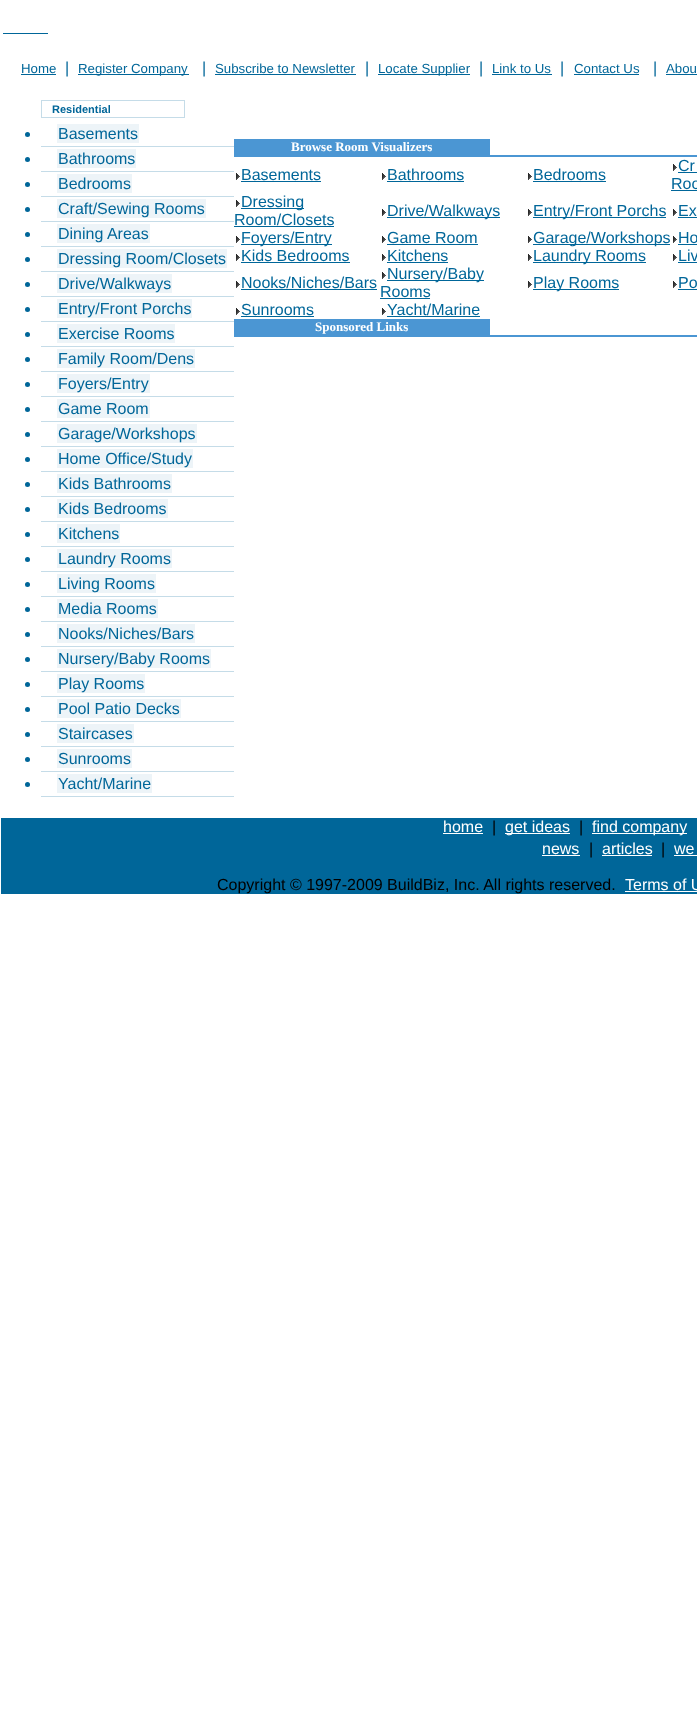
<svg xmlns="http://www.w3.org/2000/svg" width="697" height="1709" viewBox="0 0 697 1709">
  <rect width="100%" height="100%" fill="rgb(255,255,255)"/>
  <rect x="3" y="33" width="45" height="1" fill="rgb(0,102,153)"/>
  <text x="21" y="73" font-family="Liberation Sans" font-size="13.25" fill="rgb(0,102,153)">Home</text>
  <rect x="21" y="74" width="35" height="1" fill="rgb(0,102,153)"/>
  <text x="65" y="73" font-family="Liberation Sans" font-size="16" fill="rgb(0,102,153)">|</text>
  <rect x="78" y="74" width="111" height="1" fill="rgb(0,102,153)"/>
  <text x="78" y="73" font-family="Liberation Sans" font-size="13.25" fill="rgb(0,102,153)">Register Company</text>
  <text x="202" y="73" font-family="Liberation Sans" font-size="16" fill="rgb(0,102,153)">|</text>
  <text x="215" y="73" font-family="Liberation Sans" font-size="13.25" fill="rgb(0,102,153)">Subscribe to Newsletter</text>
  <rect x="215" y="74" width="141" height="1" fill="rgb(0,102,153)"/>
  <text x="365" y="73" font-family="Liberation Sans" font-size="16" fill="rgb(0,102,153)">|</text>
  <rect x="378" y="74" width="92" height="1" fill="rgb(0,102,153)"/>
  <text x="378" y="73" font-family="Liberation Sans" font-size="13.25" fill="rgb(0,102,153)">Locate Supplier</text>
  <text x="479" y="73" font-family="Liberation Sans" font-size="16" fill="rgb(0,102,153)">|</text>
  <text x="492" y="73" font-family="Liberation Sans" font-size="13.25" fill="rgb(0,102,153)">Link to Us</text>
  <rect x="492" y="74" width="60" height="1" fill="rgb(0,102,153)"/>
  <text x="560" y="73" font-family="Liberation Sans" font-size="16" fill="rgb(0,102,153)">|</text>
  <text x="574" y="73" font-family="Liberation Sans" font-size="13.25" fill="rgb(0,102,153)">Contact Us</text>
  <rect x="574" y="74" width="65" height="1" fill="rgb(0,102,153)"/>
  <text x="653" y="73" font-family="Liberation Sans" font-size="16" fill="rgb(0,102,153)">|</text>
  <text x="666" y="73" font-family="Liberation Sans" font-size="13.25" fill="rgb(0,102,153)">Abou</text>
  <rect x="666" y="74" width="31" height="1" fill="rgb(0,102,153)"/>
  <rect x="41.5" y="100.5" width="143" height="17" fill="none" stroke="rgb(197,220,232)"/>
  <text x="52" y="113" font-family="Liberation Sans" font-size="11" font-weight="bold" fill="rgb(0,102,153)">Residential</text>
  <rect x="41" y="146" width="193" height="1" fill="rgb(197,220,232)"/>
  <circle cx="27.5" cy="134.5" r="2.5" fill="rgb(0,102,153)"/>
  <rect x="57" y="124" width="82" height="19" fill="rgb(237,244,248)"/>
  <text x="58" y="139" font-family="Liberation Sans" font-size="16" fill="rgb(0,102,153)">Basements</text>
  <rect x="41" y="171" width="193" height="1" fill="rgb(197,220,232)"/>
  <circle cx="27.5" cy="159.5" r="2.5" fill="rgb(0,102,153)"/>
  <rect x="57" y="149" width="79" height="19" fill="rgb(237,244,248)"/>
  <text x="58" y="164" font-family="Liberation Sans" font-size="16" fill="rgb(0,102,153)">Bathrooms</text>
  <rect x="41" y="196" width="193" height="1" fill="rgb(197,220,232)"/>
  <circle cx="27.5" cy="184.5" r="2.5" fill="rgb(0,102,153)"/>
  <rect x="57" y="174" width="75" height="19" fill="rgb(237,244,248)"/>
  <text x="58" y="189" font-family="Liberation Sans" font-size="16" fill="rgb(0,102,153)">Bedrooms</text>
  <rect x="41" y="221" width="193" height="1" fill="rgb(197,220,232)"/>
  <circle cx="27.5" cy="209.5" r="2.5" fill="rgb(0,102,153)"/>
  <rect x="57" y="199" width="149" height="19" fill="rgb(237,244,248)"/>
  <text x="58" y="214" font-family="Liberation Sans" font-size="16" fill="rgb(0,102,153)">Craft/Sewing Rooms</text>
  <rect x="41" y="246" width="193" height="1" fill="rgb(197,220,232)"/>
  <circle cx="27.5" cy="234.5" r="2.5" fill="rgb(0,102,153)"/>
  <rect x="57" y="224" width="93" height="19" fill="rgb(237,244,248)"/>
  <text x="58" y="239" font-family="Liberation Sans" font-size="16" fill="rgb(0,102,153)">Dining Areas</text>
  <rect x="41" y="271" width="193" height="1" fill="rgb(197,220,232)"/>
  <circle cx="27.5" cy="259.5" r="2.5" fill="rgb(0,102,153)"/>
  <rect x="57" y="249" width="170" height="19" fill="rgb(237,244,248)"/>
  <text x="58" y="264" font-family="Liberation Sans" font-size="16" fill="rgb(0,102,153)">Dressing Room/Closets</text>
  <rect x="41" y="296" width="193" height="1" fill="rgb(197,220,232)"/>
  <circle cx="27.5" cy="284.5" r="2.5" fill="rgb(0,102,153)"/>
  <rect x="57" y="274" width="115" height="19" fill="rgb(237,244,248)"/>
  <text x="58" y="289" font-family="Liberation Sans" font-size="16" fill="rgb(0,102,153)">Drive/Walkways</text>
  <rect x="41" y="321" width="193" height="1" fill="rgb(197,220,232)"/>
  <circle cx="27.5" cy="309.5" r="2.5" fill="rgb(0,102,153)"/>
  <rect x="57" y="299" width="135" height="19" fill="rgb(237,244,248)"/>
  <text x="58" y="314" font-family="Liberation Sans" font-size="16" fill="rgb(0,102,153)">Entry/Front Porchs</text>
  <rect x="41" y="346" width="193" height="1" fill="rgb(197,220,232)"/>
  <circle cx="27.5" cy="334.5" r="2.5" fill="rgb(0,102,153)"/>
  <rect x="57" y="324" width="118" height="19" fill="rgb(237,244,248)"/>
  <text x="58" y="339" font-family="Liberation Sans" font-size="16" fill="rgb(0,102,153)">Exercise Rooms</text>
  <rect x="41" y="371" width="193" height="1" fill="rgb(197,220,232)"/>
  <circle cx="27.5" cy="359.5" r="2.5" fill="rgb(0,102,153)"/>
  <rect x="57" y="349" width="138" height="19" fill="rgb(237,244,248)"/>
  <text x="58" y="364" font-family="Liberation Sans" font-size="16" fill="rgb(0,102,153)">Family Room/Dens</text>
  <rect x="41" y="396" width="193" height="1" fill="rgb(197,220,232)"/>
  <circle cx="27.5" cy="384.5" r="2.5" fill="rgb(0,102,153)"/>
  <rect x="57" y="374" width="93" height="19" fill="rgb(237,244,248)"/>
  <text x="58" y="389" font-family="Liberation Sans" font-size="16" fill="rgb(0,102,153)">Foyers/Entry</text>
  <rect x="41" y="421" width="193" height="1" fill="rgb(197,220,232)"/>
  <circle cx="27.5" cy="409.5" r="2.5" fill="rgb(0,102,153)"/>
  <rect x="57" y="399" width="93" height="19" fill="rgb(237,244,248)"/>
  <text x="58" y="414" font-family="Liberation Sans" font-size="16" fill="rgb(0,102,153)">Game Room</text>
  <rect x="41" y="446" width="193" height="1" fill="rgb(197,220,232)"/>
  <circle cx="27.5" cy="434.5" r="2.5" fill="rgb(0,102,153)"/>
  <rect x="57" y="424" width="140" height="19" fill="rgb(237,244,248)"/>
  <text x="58" y="439" font-family="Liberation Sans" font-size="16" fill="rgb(0,102,153)">Garage/Workshops</text>
  <rect x="41" y="471" width="193" height="1" fill="rgb(197,220,232)"/>
  <circle cx="27.5" cy="459.5" r="2.5" fill="rgb(0,102,153)"/>
  <rect x="57" y="449" width="136" height="19" fill="rgb(237,244,248)"/>
  <text x="58" y="464" font-family="Liberation Sans" font-size="16" fill="rgb(0,102,153)">Home Office/Study</text>
  <rect x="41" y="496" width="193" height="1" fill="rgb(197,220,232)"/>
  <circle cx="27.5" cy="484.5" r="2.5" fill="rgb(0,102,153)"/>
  <rect x="57" y="474" width="115" height="19" fill="rgb(237,244,248)"/>
  <text x="58" y="489" font-family="Liberation Sans" font-size="16" fill="rgb(0,102,153)">Kids Bathrooms</text>
  <rect x="41" y="521" width="193" height="1" fill="rgb(197,220,232)"/>
  <circle cx="27.5" cy="509.5" r="2.5" fill="rgb(0,102,153)"/>
  <rect x="57" y="499" width="111" height="19" fill="rgb(237,244,248)"/>
  <text x="58" y="514" font-family="Liberation Sans" font-size="16" fill="rgb(0,102,153)">Kids Bedrooms</text>
  <rect x="41" y="546" width="193" height="1" fill="rgb(197,220,232)"/>
  <circle cx="27.5" cy="534.5" r="2.5" fill="rgb(0,102,153)"/>
  <rect x="57" y="524" width="63" height="19" fill="rgb(237,244,248)"/>
  <text x="58" y="539" font-family="Liberation Sans" font-size="16" fill="rgb(0,102,153)">Kitchens</text>
  <rect x="41" y="571" width="193" height="1" fill="rgb(197,220,232)"/>
  <circle cx="27.5" cy="559.5" r="2.5" fill="rgb(0,102,153)"/>
  <rect x="57" y="549" width="115" height="19" fill="rgb(237,244,248)"/>
  <text x="58" y="564" font-family="Liberation Sans" font-size="16" fill="rgb(0,102,153)">Laundry Rooms</text>
  <rect x="41" y="596" width="193" height="1" fill="rgb(197,220,232)"/>
  <circle cx="27.5" cy="584.5" r="2.5" fill="rgb(0,102,153)"/>
  <rect x="57" y="574" width="99" height="19" fill="rgb(237,244,248)"/>
  <text x="58" y="589" font-family="Liberation Sans" font-size="16" fill="rgb(0,102,153)">Living Rooms</text>
  <rect x="41" y="621" width="193" height="1" fill="rgb(197,220,232)"/>
  <circle cx="27.5" cy="609.5" r="2.5" fill="rgb(0,102,153)"/>
  <rect x="57" y="599" width="101" height="19" fill="rgb(237,244,248)"/>
  <text x="58" y="614" font-family="Liberation Sans" font-size="16" fill="rgb(0,102,153)">Media Rooms</text>
  <rect x="41" y="646" width="193" height="1" fill="rgb(197,220,232)"/>
  <circle cx="27.5" cy="634.5" r="2.5" fill="rgb(0,102,153)"/>
  <rect x="57" y="624" width="138" height="19" fill="rgb(237,244,248)"/>
  <text x="58" y="639" font-family="Liberation Sans" font-size="16" fill="rgb(0,102,153)">Nooks/Niches/Bars</text>
  <rect x="41" y="671" width="193" height="1" fill="rgb(197,220,232)"/>
  <circle cx="27.5" cy="659.5" r="2.5" fill="rgb(0,102,153)"/>
  <rect x="57" y="649" width="154" height="19" fill="rgb(237,244,248)"/>
  <text x="58" y="664" font-family="Liberation Sans" font-size="16" fill="rgb(0,102,153)">Nursery/Baby Rooms</text>
  <rect x="41" y="696" width="193" height="1" fill="rgb(197,220,232)"/>
  <circle cx="27.5" cy="684.5" r="2.5" fill="rgb(0,102,153)"/>
  <rect x="57" y="674" width="88" height="19" fill="rgb(237,244,248)"/>
  <text x="58" y="689" font-family="Liberation Sans" font-size="16" fill="rgb(0,102,153)">Play Rooms</text>
  <rect x="41" y="721" width="193" height="1" fill="rgb(197,220,232)"/>
  <circle cx="27.5" cy="709.5" r="2.5" fill="rgb(0,102,153)"/>
  <rect x="57" y="699" width="124" height="19" fill="rgb(237,244,248)"/>
  <text x="58" y="714" font-family="Liberation Sans" font-size="16" fill="rgb(0,102,153)">Pool Patio Decks</text>
  <rect x="41" y="746" width="193" height="1" fill="rgb(197,220,232)"/>
  <circle cx="27.5" cy="734.5" r="2.5" fill="rgb(0,102,153)"/>
  <rect x="57" y="724" width="77" height="19" fill="rgb(237,244,248)"/>
  <text x="58" y="739" font-family="Liberation Sans" font-size="16" fill="rgb(0,102,153)">Staircases</text>
  <rect x="41" y="771" width="193" height="1" fill="rgb(197,220,232)"/>
  <circle cx="27.5" cy="759.5" r="2.5" fill="rgb(0,102,153)"/>
  <rect x="57" y="749" width="75" height="19" fill="rgb(237,244,248)"/>
  <text x="58" y="764" font-family="Liberation Sans" font-size="16" fill="rgb(0,102,153)">Sunrooms</text>
  <rect x="41" y="796" width="193" height="1" fill="rgb(197,220,232)"/>
  <circle cx="27.5" cy="784.5" r="2.5" fill="rgb(0,102,153)"/>
  <rect x="57" y="774" width="95" height="19" fill="rgb(237,244,248)"/>
  <text x="58" y="789" font-family="Liberation Sans" font-size="16" fill="rgb(0,102,153)">Yacht/Marine</text>
  <rect x="234" y="139" width="256" height="16" fill="rgb(75,150,211)"/>
  <text x="291" y="151" font-family="Liberation Serif" font-size="13" font-weight="bold" fill="rgb(255,255,255)">Browse Room Visualizers</text>
  <rect x="234" y="155" width="463" height="2" fill="rgb(75,150,211)"/>
  <image x="236" y="173" width="4" height="7" href="pic1.png"/>
  <text x="241" y="180" font-family="Liberation Sans" font-size="16" fill="rgb(0,102,153)">Basements</text>
  <rect x="241" y="181" width="80" height="1" fill="rgb(0,102,153)"/>
  <image x="382" y="173" width="4" height="7" href="pic1.png"/>
  <text x="387" y="180" font-family="Liberation Sans" font-size="16" fill="rgb(0,102,153)">Bathrooms</text>
  <rect x="387" y="181" width="77" height="1" fill="rgb(0,102,153)"/>
  <image x="528" y="173" width="4" height="7" href="pic1.png"/>
  <text x="533" y="180" font-family="Liberation Sans" font-size="16" fill="rgb(0,102,153)">Bedrooms</text>
  <rect x="533" y="181" width="73" height="1" fill="rgb(0,102,153)"/>
  <image x="673" y="164" width="4" height="7" href="pic1.png"/>
  <text x="678" y="171" font-family="Liberation Sans" font-size="16" fill="rgb(0,102,153)">Cr</text>
  <rect x="678" y="172" width="19" height="1" fill="rgb(0,102,153)"/>
  <text x="671" y="189" font-family="Liberation Sans" font-size="16" fill="rgb(0,102,153)">Roo</text>
  <rect x="671" y="190" width="26" height="1" fill="rgb(0,102,153)"/>
  <image x="236" y="200" width="4" height="7" href="pic1.png"/>
  <rect x="241" y="208" width="63" height="1" fill="rgb(0,102,153)"/>
  <g font-family="Liberation Sans" font-size="16" fill="rgb(0,102,153)">
    <text x="241" y="207">Dressing</text>
    <text x="234" y="225">Room/Closets</text>
  </g>
  <rect x="234" y="226" width="100" height="1" fill="rgb(0,102,153)"/>
  <image x="382" y="209" width="4" height="7" href="pic1.png"/>
  <rect x="387" y="217" width="113" height="1" fill="rgb(0,102,153)"/>
  <text x="387" y="216" font-family="Liberation Sans" font-size="16" fill="rgb(0,102,153)">Drive/Walkways</text>
  <image x="528" y="209" width="4" height="7" href="pic1.png"/>
  <rect x="533" y="217" width="133" height="1" fill="rgb(0,102,153)"/>
  <text x="533" y="216" font-family="Liberation Sans" font-size="16" fill="rgb(0,102,153)">Entry/Front Porchs</text>
  <image x="673" y="209" width="4" height="7" href="pic1.png"/>
  <text x="678" y="216" font-family="Liberation Sans" font-size="16" fill="rgb(0,102,153)">Ex</text>
  <rect x="678" y="217" width="19" height="1" fill="rgb(0,102,153)"/>
  <image x="236" y="236" width="4" height="7" href="pic1.png"/>
  <rect x="241" y="244" width="91" height="1" fill="rgb(0,102,153)"/>
  <text x="241" y="243" font-family="Liberation Sans" font-size="16" fill="rgb(0,102,153)">Foyers/Entry</text>
  <image x="382" y="236" width="4" height="7" href="pic1.png"/>
  <text x="387" y="243" font-family="Liberation Sans" font-size="16" fill="rgb(0,102,153)">Game Room</text>
  <rect x="387" y="244" width="91" height="1" fill="rgb(0,102,153)"/>
  <image x="528" y="236" width="4" height="7" href="pic1.png"/>
  <rect x="533" y="244" width="137" height="1" fill="rgb(0,102,153)"/>
  <text x="533" y="243" font-family="Liberation Sans" font-size="16" fill="rgb(0,102,153)">Garage/Workshops</text>
  <image x="673" y="236" width="4" height="7" href="pic1.png"/>
  <text x="678" y="243" font-family="Liberation Sans" font-size="16" fill="rgb(0,102,153)">Ho</text>
  <rect x="678" y="244" width="19" height="1" fill="rgb(0,102,153)"/>
  <image x="236" y="254" width="4" height="7" href="pic1.png"/>
  <text x="241" y="261" font-family="Liberation Sans" font-size="16" fill="rgb(0,102,153)">Kids Bedrooms</text>
  <rect x="241" y="262" width="109" height="1" fill="rgb(0,102,153)"/>
  <image x="382" y="254" width="4" height="7" href="pic1.png"/>
  <text x="387" y="261" font-family="Liberation Sans" font-size="16" fill="rgb(0,102,153)">Kitchens</text>
  <rect x="387" y="262" width="61" height="1" fill="rgb(0,102,153)"/>
  <image x="528" y="254" width="4" height="7" href="pic1.png"/>
  <rect x="533" y="262" width="113" height="1" fill="rgb(0,102,153)"/>
  <text x="533" y="261" font-family="Liberation Sans" font-size="16" fill="rgb(0,102,153)">Laundry Rooms</text>
  <image x="673" y="254" width="4" height="7" href="pic1.png"/>
  <text x="678" y="261" font-family="Liberation Sans" font-size="16" fill="rgb(0,102,153)">Liv</text>
  <rect x="678" y="262" width="19" height="1" fill="rgb(0,102,153)"/>
  <image x="236" y="281" width="4" height="7" href="pic1.png"/>
  <text x="241" y="288" font-family="Liberation Sans" font-size="16" fill="rgb(0,102,153)">Nooks/Niches/Bars</text>
  <rect x="241" y="289" width="136" height="1" fill="rgb(0,102,153)"/>
  <image x="382" y="272" width="4" height="7" href="pic1.png"/>
  <rect x="387" y="280" width="97" height="1" fill="rgb(0,102,153)"/>
  <g font-family="Liberation Sans" font-size="16" fill="rgb(0,102,153)">
    <text x="387" y="279">Nursery/Baby</text>
    <text x="380" y="297">Rooms</text>
  </g>
  <rect x="380" y="298" width="50" height="1" fill="rgb(0,102,153)"/>
  <image x="528" y="281" width="4" height="7" href="pic1.png"/>
  <rect x="533" y="289" width="86" height="1" fill="rgb(0,102,153)"/>
  <text x="533" y="288" font-family="Liberation Sans" font-size="16" fill="rgb(0,102,153)">Play Rooms</text>
  <image x="673" y="281" width="4" height="7" href="pic1.png"/>
  <text x="678" y="288" font-family="Liberation Sans" font-size="16" fill="rgb(0,102,153)">Po</text>
  <rect x="678" y="289" width="19" height="1" fill="rgb(0,102,153)"/>
  <image x="236" y="308" width="4" height="7" href="pic1.png"/>
  <text x="241" y="315" font-family="Liberation Sans" font-size="16" fill="rgb(0,102,153)">Sunrooms</text>
  <rect x="241" y="316" width="73" height="1" fill="rgb(0,102,153)"/>
  <image x="382" y="308" width="4" height="7" href="pic1.png"/>
  <text x="387" y="315" font-family="Liberation Sans" font-size="16" fill="rgb(0,102,153)">Yacht/Marine</text>
  <rect x="387" y="316" width="93" height="1" fill="rgb(0,102,153)"/>
  <rect x="234" y="319" width="256" height="16" fill="rgb(75,150,211)"/>
  <text x="315" y="331" font-family="Liberation Serif" font-size="13" font-weight="bold" fill="rgb(255,255,255)">Sponsored Links</text>
  <rect x="234" y="335" width="463" height="2" fill="rgb(75,150,211)"/>
  <rect x="1" y="818" width="696" height="76" fill="rgb(0,102,153)"/>
  <text x="443" y="832" font-family="Liberation Sans" font-size="16" fill="rgb(255,255,255)">home</text>
  <rect x="443" y="833" width="40" height="1" fill="rgb(255,255,255)"/>
  <text x="492" y="832" font-family="Liberation Sans" font-size="16" fill="rgb(0,0,0)">|</text>
  <rect x="505" y="833" width="65" height="1" fill="rgb(255,255,255)"/>
  <text x="505" y="832" font-family="Liberation Sans" font-size="16" fill="rgb(255,255,255)">get ideas</text>
  <text x="579" y="832" font-family="Liberation Sans" font-size="16" fill="rgb(0,0,0)">|</text>
  <rect x="592" y="833" width="95" height="1" fill="rgb(255,255,255)"/>
  <g font-family="Liberation Sans" font-size="16" fill="rgb(255,255,255)">
    <text x="592" y="832">find company</text>
    <text x="542" y="854">news</text>
  </g>
  <rect x="542" y="855" width="38" height="1" fill="rgb(255,255,255)"/>
  <text x="589" y="854" font-family="Liberation Sans" font-size="16" fill="rgb(0,0,0)">|</text>
  <text x="602" y="854" font-family="Liberation Sans" font-size="16" fill="rgb(255,255,255)">articles</text>
  <rect x="602" y="855" width="50" height="1" fill="rgb(255,255,255)"/>
  <text x="661" y="854" font-family="Liberation Sans" font-size="16" fill="rgb(0,0,0)">|</text>
  <text x="674" y="854" font-family="Liberation Sans" font-size="16" fill="rgb(255,255,255)">we</text>
  <rect x="674" y="855" width="23" height="1" fill="rgb(255,255,255)"/>
  <text x="217" y="890" font-family="Liberation Sans" font-size="16" fill="rgb(0,0,0)">Copyright © 1997-2009 BuildBiz, Inc. All rights reserved.</text>
  <text x="625" y="890" font-family="Liberation Sans" font-size="16" fill="rgb(255,255,255)">Terms of U</text>
  <rect x="625" y="891" width="72" height="1" fill="rgb(255,255,255)"/>
</svg>
